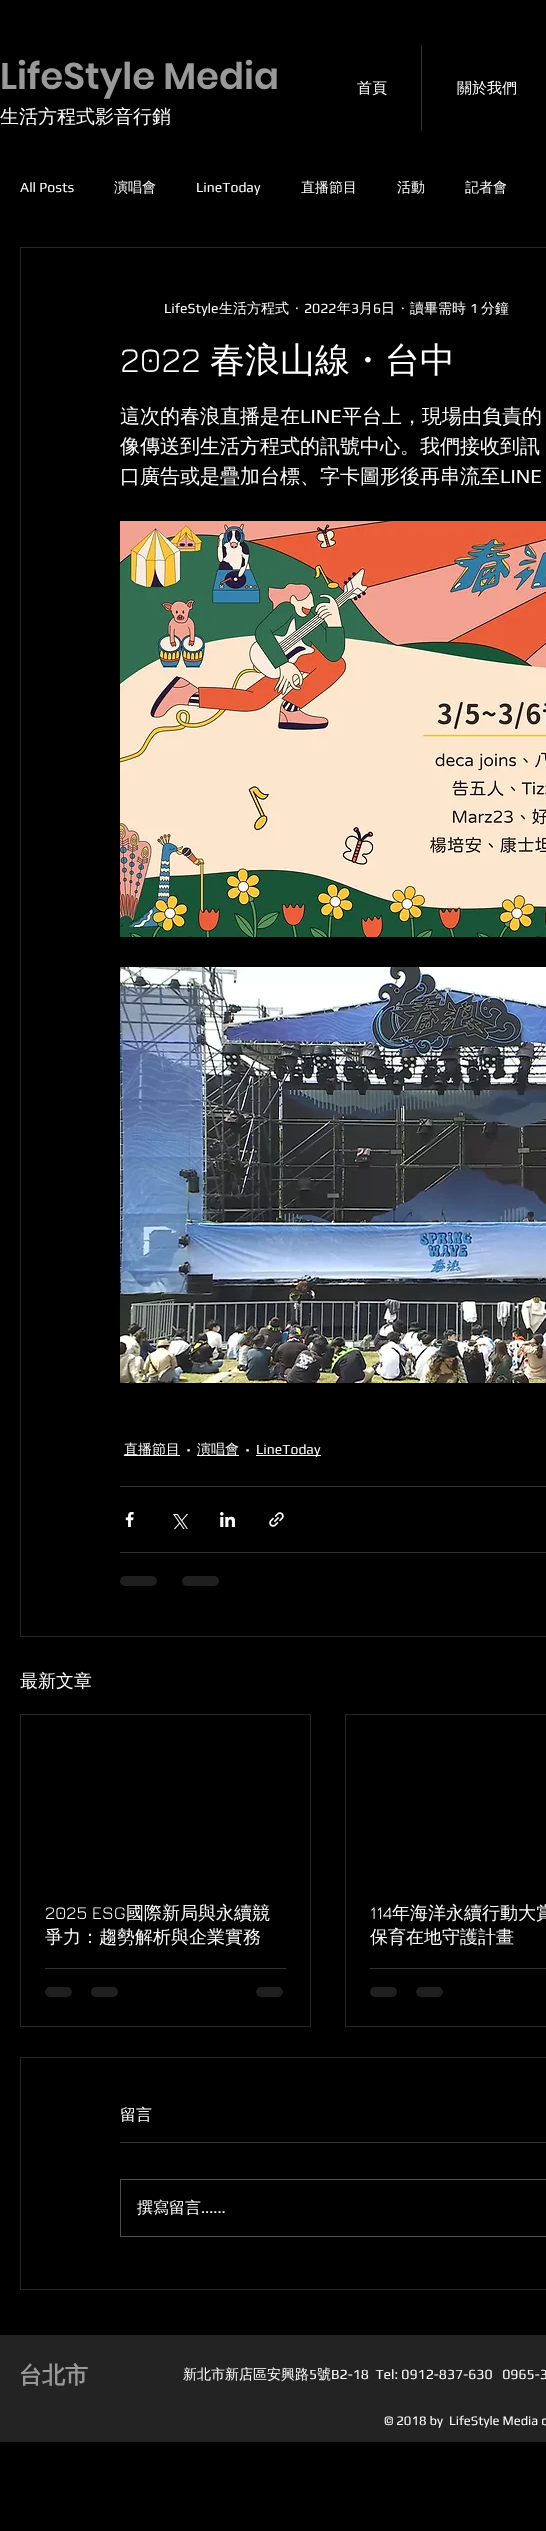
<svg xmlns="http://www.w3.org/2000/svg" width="546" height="2531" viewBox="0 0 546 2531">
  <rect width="100%" height="100%" fill="rgb(0,0,0)"/>
  <text x="0" y="89" font-family="Poppins" font-size="37" font-weight="600" fill="rgb(153,153,153)">LifeStyle Media</text>
  <text x="0" y="123" font-family="WenQuanYi Zen Hei" font-size="19" font-weight="500" fill="rgb(255,255,255)">生活方程式影音行銷</text>
  <text x="357" y="93" font-family="WenQuanYi Zen Hei" font-size="15" font-weight="500" fill="rgb(255,255,255)">首頁</text>
  <rect x="421" y="45" width="1" height="86" fill="rgb(51,51,51)"/>
  <text x="457" y="93" font-family="WenQuanYi Zen Hei" font-size="15" font-weight="500" fill="rgb(255,255,255)">關於我們</text>
  <text x="20" y="192" font-family="Play" font-size="14" fill="rgb(255,255,255)">All Posts</text>
  <text x="114" y="192" font-family="WenQuanYi Zen Hei" font-size="14" font-weight="500" fill="rgb(255,255,255)">演唱會</text>
  <text x="196" y="192" font-family="Play" font-size="14" fill="rgb(255,255,255)">LineToday</text>
  <g font-family="WenQuanYi Zen Hei" font-size="14" font-weight="500" fill="rgb(255,255,255)">
    <text x="301" y="192">直播節目</text>
    <text x="397" y="192">活動</text>
    <text x="465" y="192">記者會</text>
  </g>
  <rect x="20.5" y="247.5" width="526" height="1389" fill="none" stroke="rgb(38,38,38)"/>
  <text x="164" y="313" font-family="Play" font-size="14" fill="rgb(255,255,255)">LifeStyle</text>
  <text x="219" y="313" font-family="WenQuanYi Zen Hei" font-size="14" font-weight="500" fill="rgb(255,255,255)">生活方程式</text>
  <g font-family="Play" font-size="14" fill="rgb(255,255,255)">
    <text x="295" y="313">·</text>
    <text x="304" y="313">2022</text>
  </g>
  <text x="337" y="313" font-family="WenQuanYi Zen Hei" font-size="14" font-weight="500" fill="rgb(255,255,255)">年</text>
  <text x="351" y="313" font-family="Play" font-size="14" fill="rgb(255,255,255)">3</text>
  <text x="359" y="313" font-family="WenQuanYi Zen Hei" font-size="14" font-weight="500" fill="rgb(255,255,255)">月</text>
  <text x="373" y="313" font-family="Play" font-size="14" fill="rgb(255,255,255)">6</text>
  <text x="381" y="313" font-family="WenQuanYi Zen Hei" font-size="14" font-weight="500" fill="rgb(255,255,255)">日</text>
  <text x="401" y="313" font-family="Play" font-size="14" fill="rgb(255,255,255)">·</text>
  <text x="410" y="313" font-family="WenQuanYi Zen Hei" font-size="14" font-weight="500" fill="rgb(255,255,255)">讀畢需時</text>
  <text x="470" y="313" font-family="Play" font-size="14" fill="rgb(255,255,255)">1</text>
  <text x="481" y="313" font-family="WenQuanYi Zen Hei" font-size="14" font-weight="500" fill="rgb(255,255,255)">分鐘</text>
  <text x="120" y="372" font-family="Jura" font-size="35" fill="rgb(255,255,255)">2022</text>
  <text x="210" y="372" font-family="WenQuanYi Zen Hei" font-size="35" font-weight="500" fill="rgb(255,255,255)">春浪山線・台中</text>
  <text x="120" y="423" font-family="WenQuanYi Zen Hei" font-size="20" font-weight="500" fill="rgb(255,255,255)">這次的春浪直播是在</text>
  <text x="300" y="423" font-family="Play" font-size="20" fill="rgb(255,255,255)">LINE</text>
  <g font-family="WenQuanYi Zen Hei" font-size="20" font-weight="500" fill="rgb(255,255,255)">
    <text x="342" y="423">平台上，現場由負責的</text>
    <text>
      <tspan x="120" y="453">像傳送到生活方程式的訊號中心。我們接收到訊</tspan>
      <tspan x="120" y="483">口廣告或是疊加台標、字卡圖形後再串流至</tspan>
    </text>
  </g>
  <text x="500" y="483" font-family="Play" font-size="20" fill="rgb(255,255,255)">LINE</text>
  <image x="120" y="521" width="426" height="416" href="pic1.png"/>
  <image x="120" y="967" width="426" height="416" href="pic2.png"/>
  <rect x="124" y="1455" width="56" height="1" fill="rgb(255,255,255)"/>
  <text x="124" y="1454" font-family="WenQuanYi Zen Hei" font-size="14" font-weight="500" fill="rgb(255,255,255)">直播節目</text>
  <text x="186" y="1457" font-family="Play" font-size="20" fill="rgb(255,255,255)">·</text>
  <rect x="197" y="1455" width="42" height="1" fill="rgb(255,255,255)"/>
  <text x="197" y="1454" font-family="WenQuanYi Zen Hei" font-size="14" font-weight="500" fill="rgb(255,255,255)">演唱會</text>
  <text x="245" y="1457" font-family="Play" font-size="20" fill="rgb(255,255,255)">·</text>
  <rect x="256" y="1455" width="65" height="1" fill="rgb(255,255,255)"/>
  <text x="256" y="1454" font-family="Play" font-size="14" fill="rgb(255,255,255)">LineToday</text>
  <rect x="120" y="1486" width="426" height="1" fill="rgb(51,51,51)"/>
  <image x="125" y="1512" width="9" height="15" href="pic3.png"/>
  <image x="173" y="1514" width="15" height="15" href="pic4.png"/>
  <image x="220" y="1512" width="15" height="15" href="pic5.png"/>
  <image x="269" y="1512" width="15" height="15" href="pic6.png"/>
  <rect x="120" y="1552" width="426" height="1" fill="rgb(51,51,51)"/>
  <rect x="120" y="1576" width="37" height="10" rx="5" fill="rgb(31,31,31)"/>
  <rect x="182" y="1576" width="37" height="10" rx="5" fill="rgb(31,31,31)"/>
  <text x="20" y="1687" font-family="WenQuanYi Zen Hei" font-size="18" font-weight="500" fill="rgb(255,255,255)">最新文章</text>
  <rect x="20.5" y="1714.5" width="290" height="312" fill="none" stroke="rgb(38,38,38)"/>
  <text x="45" y="1919" font-family="Jura" font-size="18" fill="rgb(255,255,255)">2025 ESG</text>
  <g font-family="WenQuanYi Zen Hei" font-size="18" font-weight="500" fill="rgb(255,255,255)">
    <text x="126" y="1919">國際新局與永續競</text>
    <text x="45" y="1943">爭力：趨勢解析與企業實務</text>
  </g>
  <rect x="45" y="1968" width="241" height="1" fill="rgb(51,51,51)"/>
  <rect x="45" y="1987" width="27" height="10" rx="5" fill="rgb(31,31,31)"/>
  <rect x="91" y="1987" width="27" height="10" rx="5" fill="rgb(31,31,31)"/>
  <rect x="256" y="1987" width="27" height="10" rx="5" fill="rgb(31,31,31)"/>
  <rect x="345.5" y="1714.5" width="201" height="312" fill="none" stroke="rgb(38,38,38)"/>
  <text x="370" y="1919" font-family="Jura" font-size="18" fill="rgb(255,255,255)">114</text>
  <g font-family="WenQuanYi Zen Hei" font-size="18" font-weight="500" fill="rgb(255,255,255)">
    <text x="392" y="1919" word-spacing="-1">年海洋永續行動大賞</text>
    <text x="370" y="1943">保育在地守護計畫</text>
  </g>
  <rect x="370" y="1968" width="176" height="1" fill="rgb(51,51,51)"/>
  <rect x="370" y="1987" width="27" height="10" rx="5" fill="rgb(31,31,31)"/>
  <rect x="416" y="1987" width="27" height="10" rx="5" fill="rgb(31,31,31)"/>
  <rect x="20.5" y="2057.5" width="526" height="232" fill="none" stroke="rgb(38,38,38)"/>
  <text x="120" y="2120" font-family="WenQuanYi Zen Hei" font-size="16" font-weight="500" fill="rgb(255,255,255)">留言</text>
  <rect x="120" y="2142" width="426" height="1" fill="rgb(51,51,51)"/>
  <rect x="120.5" y="2179.5" width="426" height="57" fill="none" stroke="rgb(77,77,77)"/>
  <text x="137" y="2213" font-family="WenQuanYi Zen Hei" font-size="16" font-weight="500" fill="rgb(255,255,255)">撰寫留言</text>
  <text x="201" y="2213" font-family="Play" font-size="16" fill="rgb(255,255,255)">......</text>
  <rect x="0" y="2335" width="546" height="107" fill="rgb(36,35,35)"/>
  <text x="19" y="2383" font-family="WenQuanYi Zen Hei" font-size="23" font-weight="bold" fill="rgb(153,153,153)">台北市</text>
  <text x="183" y="2379" font-family="WenQuanYi Zen Hei" font-size="14" font-weight="500" fill="rgb(255,255,255)">新北市新店區安興路</text>
  <text x="309" y="2379" font-family="Play" font-size="14" fill="rgb(255,255,255)">5</text>
  <text x="317" y="2379" font-family="WenQuanYi Zen Hei" font-size="14" font-weight="500" fill="rgb(255,255,255)">號</text>
  <text x="331" y="2379" font-family="Play" font-size="14" fill="rgb(255,255,255)" xml:space="preserve">B2-18  Tel: 0912-837-630   0965-3</text>
  <text x="384" y="2425" font-family="Play" font-size="13" fill="rgb(255,255,255)" xml:space="preserve">© 2018 by  LifeStyle Media c</text>
</svg>
